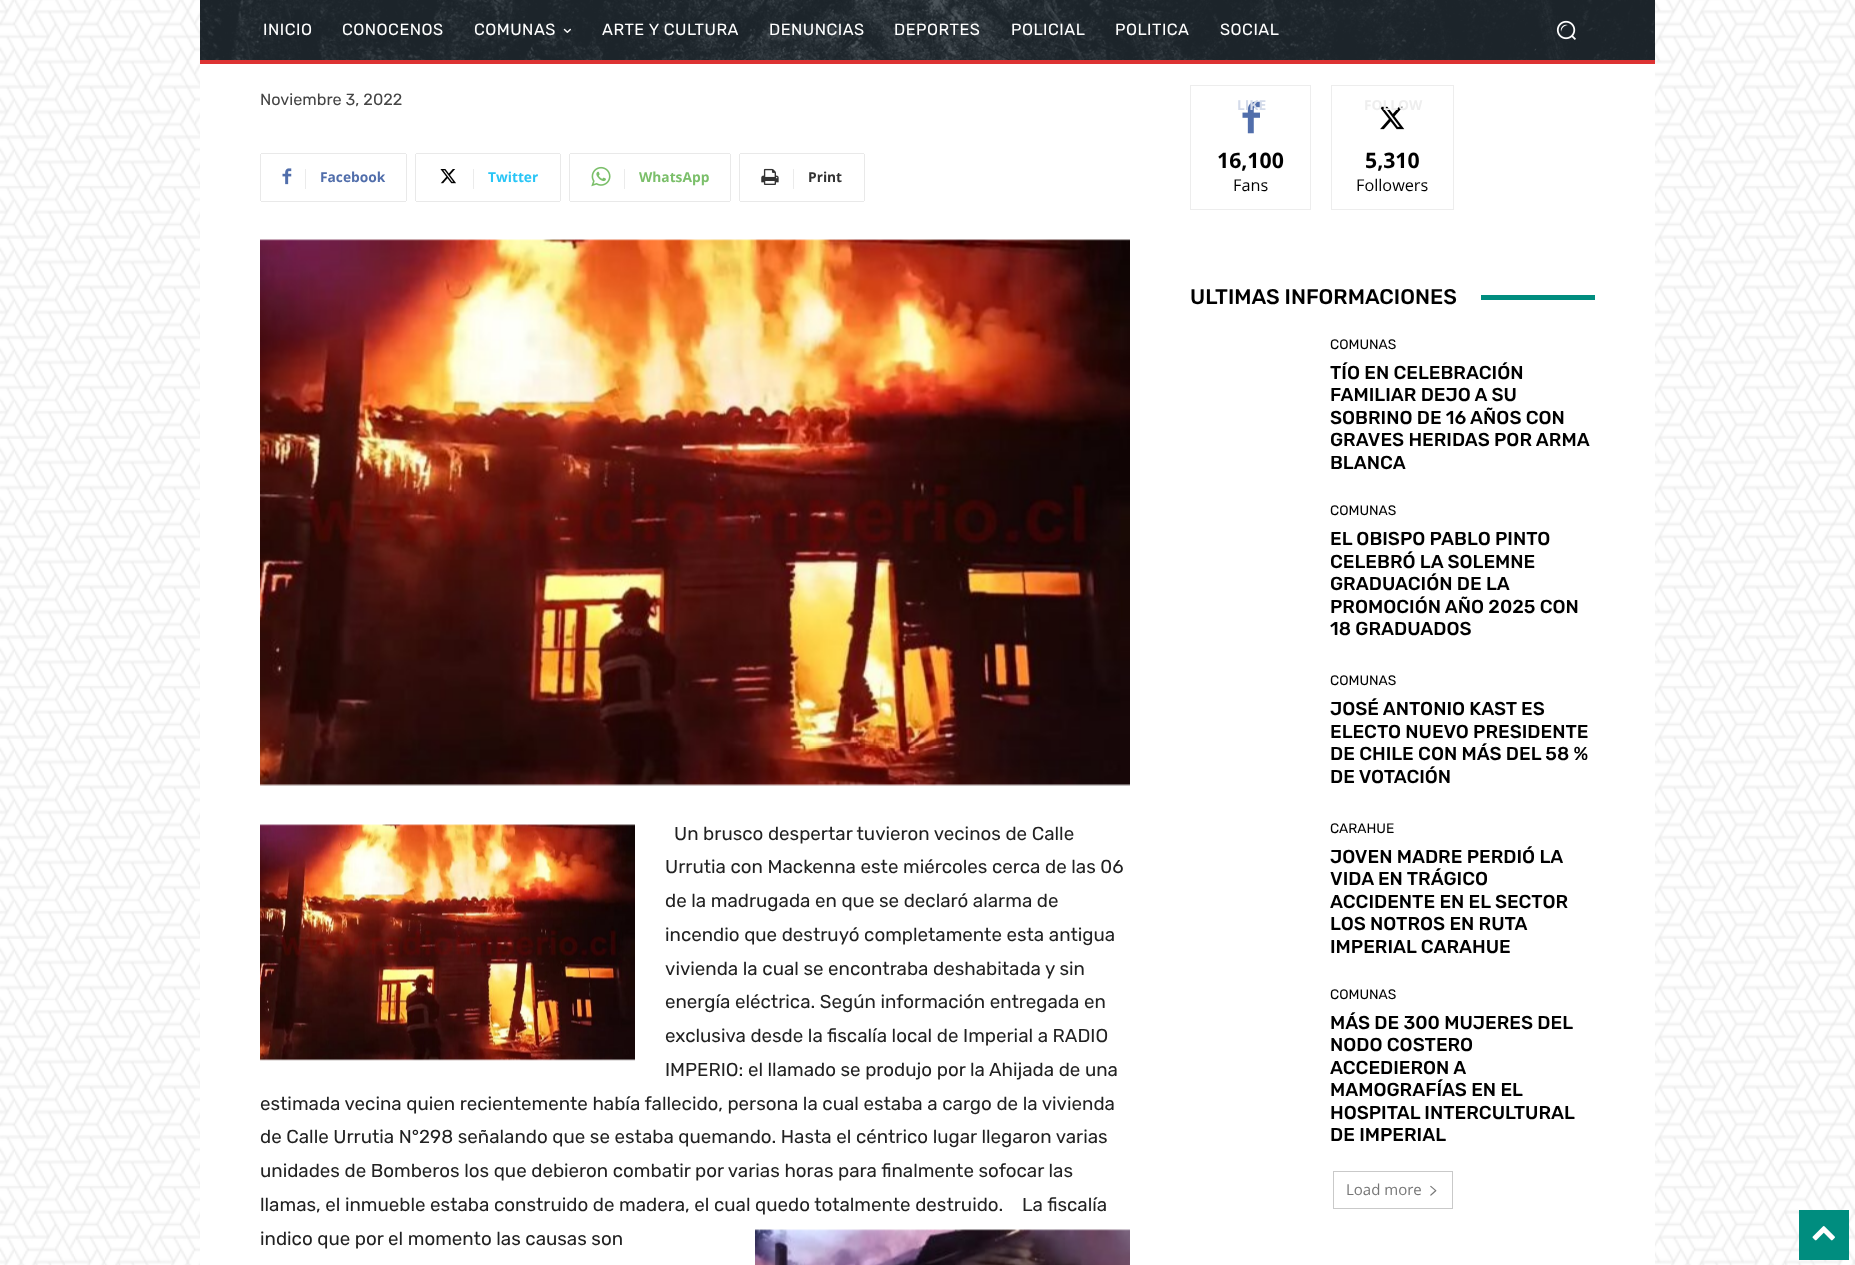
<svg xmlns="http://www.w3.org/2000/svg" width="1855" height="1265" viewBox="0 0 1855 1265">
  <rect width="100%" height="100%" fill="rgb(255,255,255)"/>
  <image x="0" y="0" width="1855" height="1265" href="pic1.png"/>
  <rect x="200" y="0" width="1455" height="60" fill="rgb(35,45,53)"/>
  <image x="200" y="0" width="1455" height="60" href="pic2.png"/>
  <g font-family="Rubik" font-size="16.25" letter-spacing="0.5" fill="rgb(255,255,255)">
    <text x="263" y="35">INICIO</text>
    <text x="342" y="35">CONOCENOS</text>
    <text x="474" y="35">COMUNAS</text>
  </g>
  <image x="563" y="28" width="8" height="5" href="pic3.png"/>
  <g font-family="Rubik" font-size="16.25" letter-spacing="0.5" fill="rgb(255,255,255)">
    <text x="602" y="35">ARTE Y CULTURA</text>
    <text x="769" y="35">DENUNCIAS</text>
    <text x="894" y="35">DEPORTES</text>
    <text x="1011" y="35">POLICIAL</text>
    <text x="1115" y="35">POLITICA</text>
    <text x="1220" y="35">SOCIAL</text>
  </g>
  <image x="1556" y="20" width="20" height="20" href="pic4.png"/>
  <rect x="200" y="60" width="1455" height="4" fill="rgb(221,51,51)"/>
  <rect x="200" y="64" width="1455" height="1201" fill="rgb(255,255,255)"/>
  <text x="260" y="105" font-family="Rubik" font-size="16.25" fill="rgb(68,68,68)">Noviembre 3, 2022</text>
  <rect x="260" y="154" width="1" height="47" fill="rgb(233,233,233)"/>
  <image x="282" y="168" width="10" height="17" href="pic5.png"/>
  <rect x="261" y="153" width="145" height="1" fill="rgb(233,233,233)"/>
  <rect x="406" y="154" width="1" height="47" fill="rgb(233,233,233)"/>
  <rect x="261" y="201" width="145" height="1" fill="rgb(233,233,233)"/>
  <rect x="305" y="169" width="1" height="20" fill="rgb(235,235,235)"/>
  <text x="320" y="182" font-family="Open Sans" font-size="13.75" font-weight="bold" fill="rgb(81,110,171)">Facebook</text>
  <rect x="415" y="154" width="1" height="47" fill="rgb(233,233,233)"/>
  <image x="440" y="169" width="16" height="15" href="pic6.png"/>
  <rect x="416" y="153" width="144" height="1" fill="rgb(233,233,233)"/>
  <rect x="560" y="154" width="1" height="47" fill="rgb(233,233,233)"/>
  <rect x="416" y="201" width="144" height="1" fill="rgb(233,233,233)"/>
  <rect x="473" y="169" width="1" height="20" fill="rgb(235,235,235)"/>
  <text x="488" y="182" font-family="Open Sans" font-size="13.75" font-weight="bold" fill="rgb(41,197,246)">Twitter</text>
  <rect x="569" y="154" width="1" height="47" fill="rgb(233,233,233)"/>
  <image x="591" y="166" width="20" height="21" href="pic7.png"/>
  <rect x="570" y="153" width="160" height="1" fill="rgb(233,233,233)"/>
  <rect x="730" y="154" width="1" height="47" fill="rgb(233,233,233)"/>
  <rect x="570" y="201" width="160" height="1" fill="rgb(233,233,233)"/>
  <rect x="624" y="169" width="1" height="20" fill="rgb(235,235,235)"/>
  <text x="639" y="182" font-family="Open Sans" font-size="13.75" font-weight="bold" fill="rgb(123,191,106)">WhatsApp</text>
  <rect x="739" y="154" width="1" height="47" fill="rgb(233,233,233)"/>
  <image x="761" y="168" width="18" height="17" href="pic8.png"/>
  <rect x="740" y="153" width="124" height="1" fill="rgb(233,233,233)"/>
  <rect x="864" y="154" width="1" height="47" fill="rgb(233,233,233)"/>
  <rect x="740" y="201" width="124" height="1" fill="rgb(233,233,233)"/>
  <rect x="793" y="169" width="1" height="20" fill="rgb(235,235,235)"/>
  <text x="808" y="182" font-family="Open Sans" font-size="13.75" font-weight="bold" fill="rgb(51,51,51)">Print</text>
  <image x="260" y="239" width="870" height="547" href="pic9.png"/>
  <image x="260" y="824" width="375" height="237" href="pic10.png"/>
  <g font-family="Rubik" font-size="18.75" fill="rgb(34,34,34)">
    <text x="674" y="840">Un brusco despertar tuvieron vecinos de Calle</text>
    <text>
      <tspan x="665" y="873">Urrutia con Mackenna este miércoles cerca de las 06</tspan>
      <tspan x="665" y="907">de la madrugada en que se declaró alarma de</tspan>
      <tspan x="665" y="941">incendio que destruyó completamente esta antigua</tspan>
      <tspan x="665" y="975">vivienda la cual se encontraba deshabitada y sin</tspan>
      <tspan x="665" y="1008">energía eléctrica. Según información entregada en</tspan>
      <tspan x="665" y="1042">exclusiva desde la fiscalía local de Imperial a RADIO</tspan>
      <tspan x="665" y="1076">IMPERIO: el llamado se produjo por la Ahijada de una</tspan>
    </text>
    <text>
      <tspan x="260" y="1110">estimada vecina quien recientemente había fallecido, persona la cual estaba a cargo de la vivienda</tspan>
      <tspan x="260" y="1143">de Calle Urrutia N°298 señalando que se estaba quemando. Hasta el céntrico lugar llegaron varias</tspan>
      <tspan x="260" y="1177">unidades de Bomberos los que debieron combatir por varias horas para finalmente sofocar las</tspan>
      <tspan x="260" y="1211">llamas, el inmueble estaba construido de madera, el cual quedo totalmente destruido.</tspan>
    </text>
    <text x="1022" y="1211">La fiscalía</text>
    <text x="260" y="1245">indico que por el momento las causas son</text>
  </g>
  <image x="755" y="1229" width="375" height="36" href="pic11.png"/>
  <rect x="1190.5" y="85.5" width="120" height="124" fill="none" stroke="rgb(237,237,237)"/>
  <image x="1242" y="101" width="18" height="33" href="pic12.png"/>
  <text x="1237" y="110" font-family="Open Sans" font-size="13.75" font-weight="bold" fill="rgb(212,219,234)">LIKE</text>
  <text x="1217" y="168" font-family="Open Sans" font-size="21.25" font-weight="bold" fill="rgb(0,0,0)">16,100</text>
  <text x="1233" y="191" font-family="Open Sans" font-size="16.25" fill="rgb(0,0,0)">Fans</text>
  <rect x="1331.5" y="85.5" width="122" height="124" fill="none" stroke="rgb(237,237,237)"/>
  <image x="1379" y="106" width="26" height="24" href="pic13.png"/>
  <text x="1364" y="110" font-family="Open Sans" font-size="13.75" font-weight="bold" fill="rgb(238,238,238)">FOLLOW</text>
  <text x="1365" y="168" font-family="Open Sans" font-size="21.25" font-weight="bold" fill="rgb(0,0,0)">5,310</text>
  <text x="1356" y="191" font-family="Open Sans" font-size="16.25" fill="rgb(0,0,0)">Followers</text>
  <text x="1190" y="304" font-family="Rubik" font-size="21.25" font-weight="500" fill="rgb(0,0,0)">ULTIMAS INFORMACIONES</text>
  <rect x="1481" y="295" width="114" height="5" fill="rgb(0,141,127)"/>
  <text x="1330" y="349" font-family="Rubik" font-size="13.75" fill="rgb(0,0,0)">COMUNAS</text>
  <g font-family="Rubik" font-size="18.75" font-weight="500" fill="rgb(0,0,0)">
    <text>
      <tspan x="1330" y="379">TÍO EN CELEBRACIÓN</tspan>
      <tspan x="1330" y="401">FAMILIAR DEJO A SU</tspan>
      <tspan x="1330" y="424">SOBRINO DE 16 AÑOS CON</tspan>
      <tspan x="1330" y="446">GRAVES HERIDAS POR ARMA</tspan>
      <tspan x="1330" y="469">BLANCA</tspan>
    </text>
  </g>
  <text x="1330" y="515" font-family="Rubik" font-size="13.75" fill="rgb(0,0,0)">COMUNAS</text>
  <g font-family="Rubik" font-size="18.75" font-weight="500" fill="rgb(0,0,0)">
    <text>
      <tspan x="1330" y="545">EL OBISPO PABLO PINTO</tspan>
      <tspan x="1330" y="568">CELEBRÓ LA SOLEMNE</tspan>
      <tspan x="1330" y="590">GRADUACIÓN DE LA</tspan>
      <tspan x="1330" y="613">PROMOCIÓN AÑO 2025 CON</tspan>
      <tspan x="1330" y="635">18 GRADUADOS</tspan>
    </text>
  </g>
  <text x="1330" y="685" font-family="Rubik" font-size="13.75" fill="rgb(0,0,0)">COMUNAS</text>
  <g font-family="Rubik" font-size="18.75" font-weight="500" fill="rgb(0,0,0)">
    <text>
      <tspan x="1330" y="715">JOSÉ ANTONIO KAST ES</tspan>
      <tspan x="1330" y="738">ELECTO NUEVO PRESIDENTE</tspan>
      <tspan x="1330" y="760">DE CHILE CON MÁS DEL 58 %</tspan>
      <tspan x="1330" y="783">DE VOTACIÓN</tspan>
    </text>
  </g>
  <text x="1330" y="833" font-family="Rubik" font-size="13.75" fill="rgb(0,0,0)">CARAHUE</text>
  <g font-family="Rubik" font-size="18.75" font-weight="500" fill="rgb(0,0,0)">
    <text>
      <tspan x="1330" y="863">JOVEN MADRE PERDIÓ LA</tspan>
      <tspan x="1330" y="885">VIDA EN TRÁGICO</tspan>
      <tspan x="1330" y="908">ACCIDENTE EN EL SECTOR</tspan>
      <tspan x="1330" y="930">LOS NOTROS EN RUTA</tspan>
      <tspan x="1330" y="953">IMPERIAL CARAHUE</tspan>
    </text>
  </g>
  <text x="1330" y="999" font-family="Rubik" font-size="13.75" fill="rgb(0,0,0)">COMUNAS</text>
  <g font-family="Rubik" font-size="18.75" font-weight="500" fill="rgb(0,0,0)">
    <text>
      <tspan x="1330" y="1029">MÁS DE 300 MUJERES DEL</tspan>
      <tspan x="1330" y="1051">NODO COSTERO</tspan>
      <tspan x="1330" y="1074">ACCEDIERON A</tspan>
      <tspan x="1330" y="1096">MAMOGRAFÍAS EN EL</tspan>
      <tspan x="1330" y="1119">HOSPITAL INTERCULTURAL</tspan>
      <tspan x="1330" y="1141">DE IMPERIAL</tspan>
    </text>
  </g>
  <rect x="1333.5" y="1171.5" width="119" height="37" fill="none" stroke="rgb(201,201,201)"/>
  <text x="1346" y="1195" font-family="Open Sans" font-size="15" fill="rgb(118,118,118)">Load more</text>
  <image x="1430" y="1185" width="7" height="11" href="pic14.png"/>
  <rect x="1799" y="1210" width="50" height="50" fill="rgb(0,141,127)"/>
  <image x="1812" y="1226" width="23" height="15" href="pic15.png"/>
</svg>
